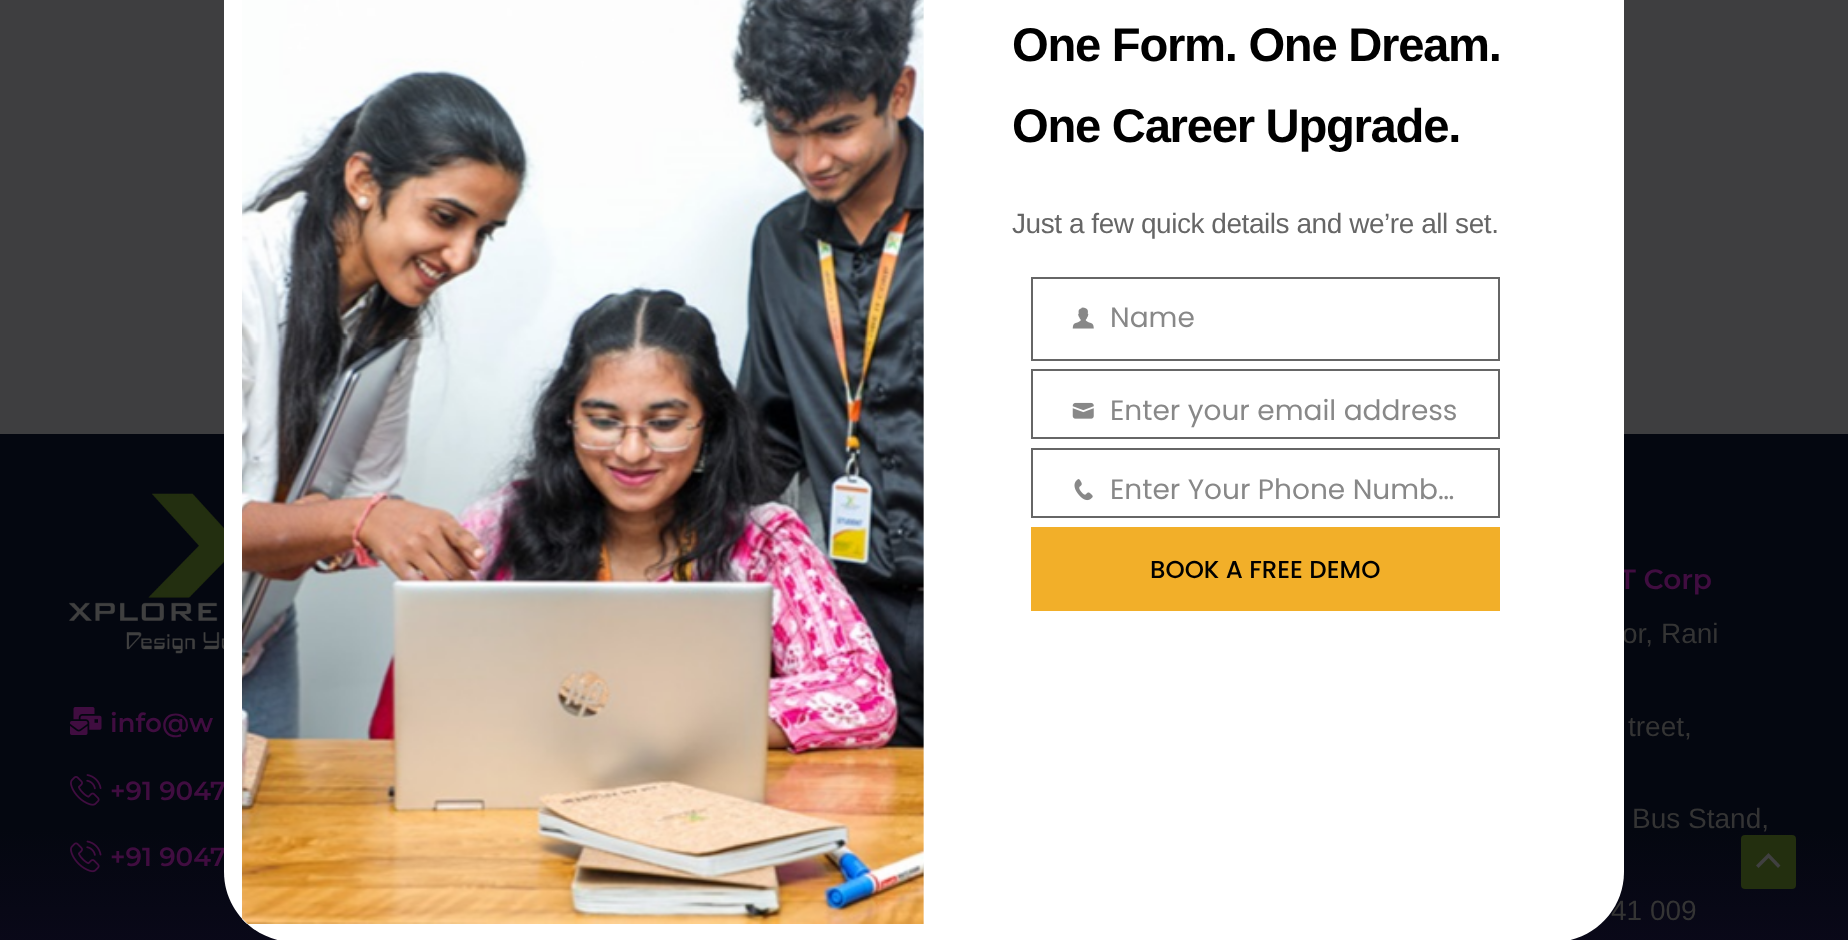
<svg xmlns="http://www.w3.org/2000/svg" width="1848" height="940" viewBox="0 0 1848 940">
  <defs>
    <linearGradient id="g1" gradientUnits="userSpaceOnUse" x1="924" y1="434" x2="924" y2="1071"><stop offset="0.62" stop-color="rgb(4,7,16)"/><stop offset="1" stop-color="rgb(16,10,34)"/></linearGradient>
    <clipPath id="clip1"><rect x="224" y="-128" width="1400" height="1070" rx="70"/></clipPath>
  </defs>
  <rect width="100%" height="100%" fill="rgb(62,62,64)"/>
  <rect x="0" y="434" width="1848" height="506" fill="url(#g1)"/>
  <g font-family="Montserrat" font-size="26.25" font-weight="600" fill="rgb(64,13,64)">
    <text x="110" y="800">+91 9047</text>
    <text x="110" y="866">+91 9047</text>
  </g>
  <text x="1619" y="589" font-family="Montserrat" font-size="28" font-weight="600" fill="rgb(64,13,64)">T Corp</text>
  <g font-family="Liberation Sans" font-size="28" fill="rgb(52,52,52)">
    <text x="1622" y="643">or, Rani</text>
    <text x="1611" y="920">41 009</text>
  </g>
  <path d="M224 0H1624V872C1624 910.5 1592.5 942 1554 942H294C255.5 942 224 910.5 224 872Z" fill="rgb(255,255,255)"/>
  <g clip-path="url(#clip1)">
    <rect x="242" y="0" width="682" height="924" fill="rgb(255,255,255)"/>
  </g>
  <image x="242" y="0" width="682" height="924" href="pic1.png"/>
  <g font-family="Liberation Sans" font-size="47.25" font-weight="bold" letter-spacing="-1.3" fill="rgb(0,0,0)">
    <text>
      <tspan x="1012" y="61">One Form. One Dream.</tspan>
      <tspan x="1012" y="142">One Career Upgrade.</tspan>
    </text>
  </g>
  <text x="1012" y="233" font-family="Liberation Sans" font-size="28" letter-spacing="-0.45" fill="rgb(102,102,102)">Just a few quick details and we’re all set.</text>
  <rect x="1032" y="278" width="467" height="82" fill="none" stroke="rgb(102,102,102)" stroke-width="2"/>
  <image x="1072" y="307" width="22" height="22" href="pic2.png"/>
  <text x="1110" y="327" font-family="Poppins" font-size="28" fill="rgb(136,136,136)">Name</text>
  <rect x="1032" y="370" width="467" height="68" fill="none" stroke="rgb(102,102,102)" stroke-width="2"/>
  <image x="1072" y="402" width="22" height="17" href="pic3.png"/>
  <text x="1110" y="420" font-family="Poppins" font-size="28" fill="rgb(136,136,136)">Enter your email address</text>
  <rect x="1032" y="449" width="467" height="68" fill="none" stroke="rgb(102,102,102)" stroke-width="2"/>
  <image x="1074" y="479" width="19" height="22" href="pic4.png"/>
  <text x="1110" y="499" font-family="Poppins" font-size="28" fill="rgb(136,136,136)">Enter Your Phone Numb…</text>
  <rect x="1031" y="527" width="469" height="84" fill="rgb(242,175,41)"/>
  <text x="1150" y="578" font-family="Poppins" font-size="24.5" font-weight="500" fill="rgb(0,0,0)">BOOK A FREE DEMO</text>
  <image x="68" y="493" width="156" height="161" href="pic5.png"/>
  <image x="70" y="707" width="32" height="28" href="pic6.png"/>
  <text x="110" y="732" font-family="Montserrat" font-size="26.25" font-weight="600" fill="rgb(64,13,64)">info@w</text>
  <image x="70" y="774" width="32" height="32" href="pic7.png"/>
  <image x="70" y="840" width="32" height="33" href="pic8.png"/>
  <g font-family="Liberation Sans" font-size="28" fill="rgb(52,52,52)">
    <text x="1628" y="736">treet,</text>
    <text x="1632" y="828">Bus Stand,</text>
  </g>
  <rect x="1741" y="835" width="55" height="54" rx="4" fill="rgb(35,47,15)"/>
  <path d="M1780.5 865.5L1768.5 853L1756 865.5L1758.5 868L1768.5 858L1778 868Z" fill="rgb(64,64,64)"/>
</svg>
